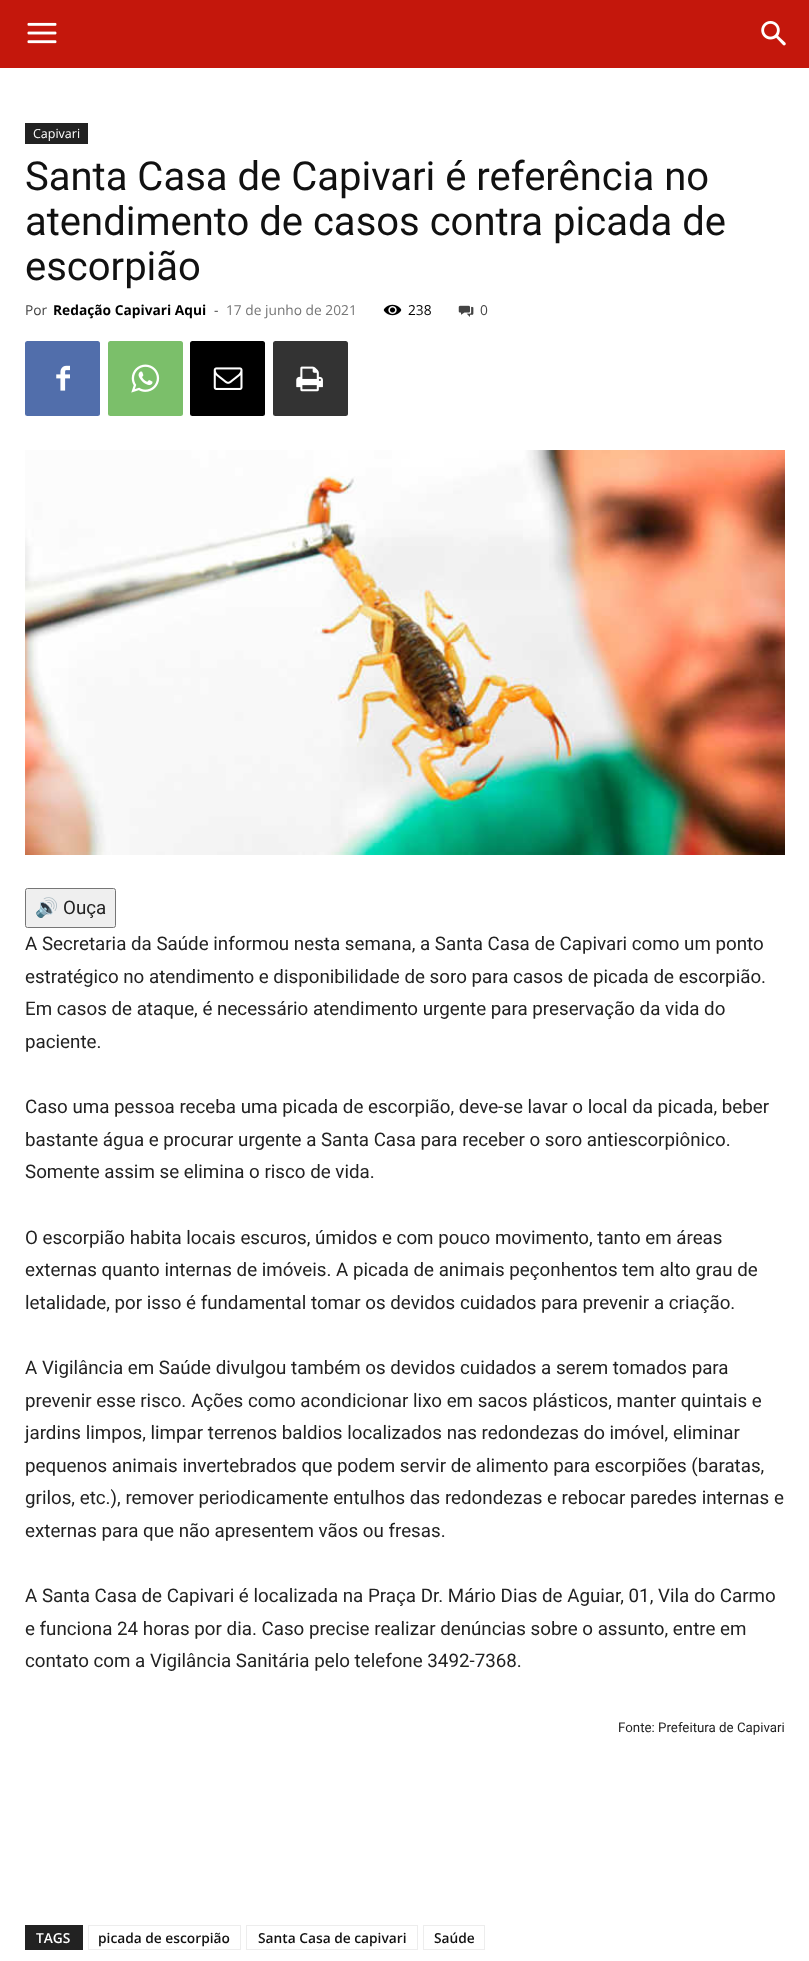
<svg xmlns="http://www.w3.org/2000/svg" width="809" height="1961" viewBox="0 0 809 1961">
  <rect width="100%" height="100%" fill="rgb(255,255,255)"/>
  <rect x="0" y="0" width="809" height="68" fill="rgb(196,23,12)"/>
  <image x="27" y="22" width="30" height="22" href="pic1.png"/>
  <image x="761" y="21" width="25" height="25" href="pic2.png"/>
  <rect x="25" y="123" width="63" height="21" fill="rgb(34,34,34)"/>
  <text x="33" y="138" font-family="Open Sans" font-size="12.5" fill="rgb(255,255,255)">Capivari</text>
  <g font-family="Roboto" font-size="40" fill="rgb(17,17,17)">
    <text>
      <tspan x="25" y="190">Santa Casa de Capivari é referência no</tspan>
      <tspan x="25" y="235">atendimento de casos contra picada de</tspan>
      <tspan x="25" y="280">escorpião</tspan>
    </text>
  </g>
  <text x="25" y="315" font-family="Open Sans" font-size="13.75" fill="rgb(68,68,68)">Por</text>
  <text x="53" y="315" font-family="Open Sans" font-size="13.75" font-weight="bold" fill="rgb(0,0,0)">Redação Capivari Aqui</text>
  <text x="214" y="315" font-family="Open Sans" font-size="13.75" fill="rgb(68,68,68)">-</text>
  <text x="226" y="315" font-family="Open Sans" font-size="13.75" fill="rgb(118,118,118)">17 de junho de 2021</text>
  <image x="383" y="304" width="19" height="12" href="pic3.png"/>
  <text x="408" y="315" font-family="Open Sans" font-size="13.75" fill="rgb(0,0,0)">238</text>
  <image x="458" y="305" width="16" height="12" href="pic4.png"/>
  <text x="480" y="315" font-family="Open Sans" font-size="13.75" fill="rgb(68,68,68)">0</text>
  <rect x="25" y="341" width="75" height="75" rx="2.5" fill="rgb(81,110,171)"/>
  <image x="56" y="365" width="14" height="26" href="pic5.png"/>
  <rect x="108" y="341" width="75" height="75" rx="2.5" fill="rgb(123,191,106)"/>
  <image x="131" y="364" width="29" height="29" href="pic6.png"/>
  <rect x="190" y="341" width="75" height="75" rx="2.5" fill="rgb(0,0,0)"/>
  <image x="213" y="367" width="30" height="23" href="pic7.png"/>
  <rect x="273" y="341" width="75" height="75" rx="2.5" fill="rgb(51,51,51)"/>
  <image x="296" y="366" width="27" height="26" href="pic8.png"/>
  <image x="25" y="450" width="760" height="405" href="pic9.png"/>
  <rect x="25.5" y="888.5" width="90" height="39" rx="2" fill="rgb(239,239,239)" stroke="rgb(118,118,118)"/>
  <text x="35" y="914" font-family="Noto Color Emoji" font-size="18.75" fill="rgb(34,34,34)">🔊</text>
  <g font-family="Roboto" font-size="18.75" fill="rgb(34,34,34)">
    <text x="63" y="914">Ouça</text>
    <text>
      <tspan x="25" y="950">A Secretaria da Saúde informou nesta semana, a Santa Casa de Capivari como um ponto</tspan>
      <tspan x="25" y="983">estratégico no atendimento e disponibilidade de soro para casos de picada de escorpião.</tspan>
      <tspan x="25" y="1015">Em casos de ataque, é necessário atendimento urgente para preservação da vida do</tspan>
      <tspan x="25" y="1048">paciente.</tspan>
    </text>
    <text>
      <tspan x="25" y="1113">Caso uma pessoa receba uma picada de escorpião, deve-se lavar o local da picada, beber</tspan>
      <tspan x="25" y="1146">bastante água e procurar urgente a Santa Casa para receber o soro antiescorpiônico.</tspan>
      <tspan x="25" y="1178">Somente assim se elimina o risco de vida.</tspan>
    </text>
    <text>
      <tspan x="25" y="1244">O escorpião habita locais escuros, úmidos e com pouco movimento, tanto em áreas</tspan>
      <tspan x="25" y="1276">externas quanto internas de imóveis. A picada de animais peçonhentos tem alto grau de</tspan>
      <tspan x="25" y="1309">letalidade, por isso é fundamental tomar os devidos cuidados para prevenir a criação.</tspan>
    </text>
    <text>
      <tspan x="25" y="1374">A Vigilância em Saúde divulgou também os devidos cuidados a serem tomados para</tspan>
      <tspan x="25" y="1407">prevenir esse risco. Ações como acondicionar lixo em sacos plásticos, manter quintais e</tspan>
      <tspan x="25" y="1439">jardins limpos, limpar terrenos baldios localizados nas redondezas do imóvel, eliminar</tspan>
      <tspan x="25" y="1472">pequenos animais invertebrados que podem servir de alimento para escorpiões (baratas,</tspan>
      <tspan x="25" y="1504">grilos, etc.), remover periodicamente entulhos das redondezas e rebocar paredes internas e</tspan>
      <tspan x="25" y="1537">externas para que não apresentem vãos ou fresas.</tspan>
    </text>
    <text>
      <tspan x="25" y="1602">A Santa Casa de Capivari é localizada na Praça Dr. Mário Dias de Aguiar, 01, Vila do Carmo</tspan>
      <tspan x="25" y="1635">e funciona 24 horas por dia. Caso precise realizar denúncias sobre o assunto, entre em</tspan>
      <tspan x="25" y="1667">contato com a Vigilância Sanitária pelo telefone 3492-7368.</tspan>
    </text>
  </g>
  <text x="618" y="1732" font-family="Roboto" font-size="13.3" fill="rgb(34,34,34)">Fonte: Prefeitura de Capivari</text>
  <rect x="25" y="1925" width="58" height="25" fill="rgb(34,34,34)"/>
  <text x="36" y="1943" font-family="Open Sans" font-size="13.75" font-weight="600" fill="rgb(255,255,255)">TAGS</text>
  <rect x="88.5" y="1925.5" width="152" height="24" fill="none" stroke="rgb(237,237,237)"/>
  <text x="98" y="1943" font-family="Open Sans" font-size="13.75" font-weight="600" fill="rgb(17,17,17)">picada de escorpião</text>
  <rect x="246.5" y="1925.5" width="171" height="24" fill="none" stroke="rgb(237,237,237)"/>
  <text x="258" y="1943" font-family="Open Sans" font-size="13.75" font-weight="600" fill="rgb(17,17,17)">Santa Casa de capivari</text>
  <rect x="423.5" y="1925.5" width="61" height="24" fill="none" stroke="rgb(237,237,237)"/>
  <text x="434" y="1943" font-family="Open Sans" font-size="13.75" font-weight="600" fill="rgb(17,17,17)">Saúde</text>
</svg>
